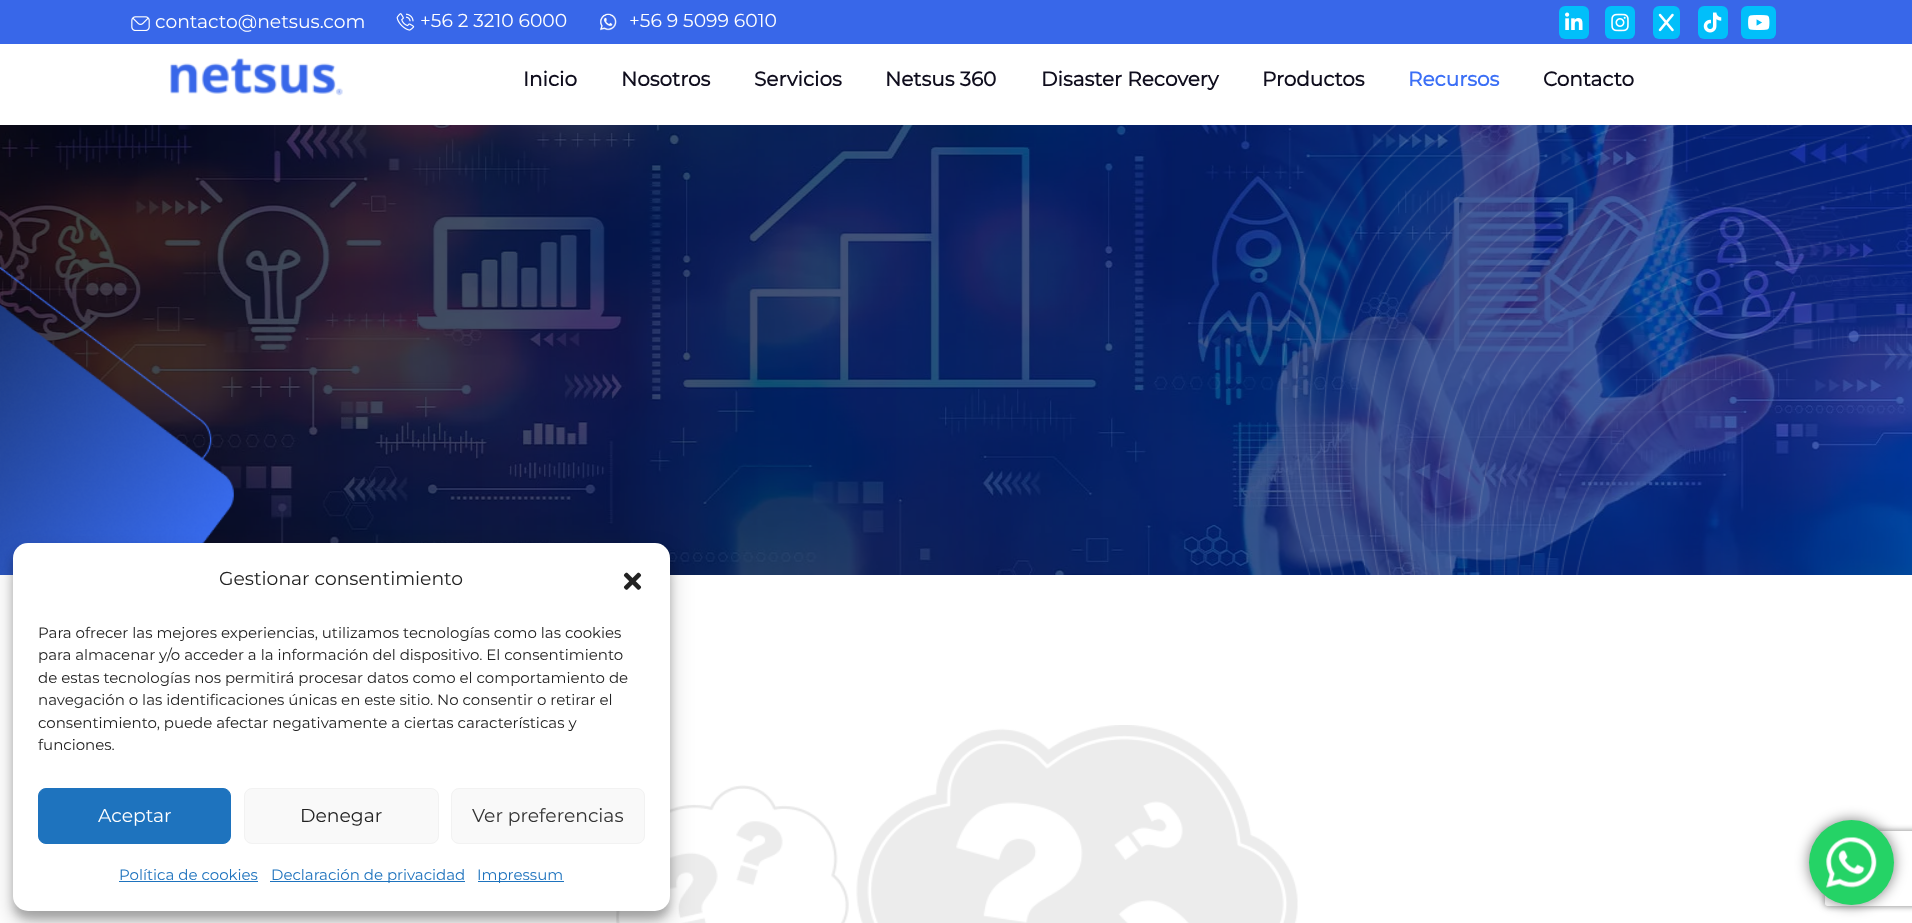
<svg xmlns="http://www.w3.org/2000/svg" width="1912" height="923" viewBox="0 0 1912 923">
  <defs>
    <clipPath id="clip1"><path d="M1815 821H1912V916H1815ZM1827.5 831H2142.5C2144 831 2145 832 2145 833.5V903.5C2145 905 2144 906 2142.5 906H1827.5C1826 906 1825 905 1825 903.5V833.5C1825 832 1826 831 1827.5 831Z" clip-rule="evenodd"/></clipPath>
  </defs>
  <rect width="100%" height="100%" fill="rgb(255,255,255)"/>
  <rect x="0" y="0" width="1912" height="44" fill="rgb(56,103,233)"/>
  <image x="131" y="16" width="19" height="15" href="pic1.png"/>
  <text x="155" y="28" font-family="Montserrat" font-size="18.75" font-weight="100" fill="rgb(255,255,255)">contacto@netsus.com</text>
  <image x="396" y="13" width="19" height="18" href="pic2.png"/>
  <text x="420" y="27" font-family="Montserrat" font-size="18.75" font-weight="100" fill="rgb(255,255,255)">+56 2 3210 6000</text>
  <image x="600" y="13" width="17" height="18" href="pic3.png"/>
  <text x="629" y="27" font-family="Montserrat" font-size="18.75" font-weight="100" fill="rgb(255,255,255)">+56 9 5099 6010</text>
  <rect x="1559" y="6" width="30" height="33" rx="6" fill="rgb(1,191,250)"/>
  <image x="1565" y="12" width="18" height="18" href="pic4.png"/>
  <rect x="1605" y="6" width="30" height="33" rx="6" fill="rgb(1,191,250)"/>
  <image x="1611" y="13" width="18" height="19" href="pic5.png"/>
  <rect x="1653" y="6" width="27" height="33" rx="6" fill="rgb(1,191,250)"/>
  <image x="1658" y="13" width="16" height="19" href="pic6.png"/>
  <rect x="1698" y="6" width="30" height="33" rx="6" fill="rgb(1,191,250)"/>
  <image x="1703" y="12" width="19" height="21" href="pic7.png"/>
  <rect x="1741" y="6" width="35" height="33" rx="6" fill="rgb(1,191,250)"/>
  <image x="1748" y="15" width="22" height="15" href="pic8.png"/>
  <image x="170" y="58" width="173" height="38" href="pic9.png"/>
  <g font-family="Montserrat" font-size="20" font-weight="bold" fill="rgb(15,13,29)">
    <text x="523" y="86">Inicio</text>
    <text x="621" y="86">Nosotros</text>
    <text x="754" y="86">Servicios</text>
    <text x="885" y="86">Netsus 360</text>
    <text x="1041" y="86">Disaster Recovery</text>
    <text x="1262" y="86">Productos</text>
  </g>
  <text x="1408" y="86" font-family="Montserrat" font-size="20" font-weight="bold" fill="rgb(59,111,246)">Recursos</text>
  <text x="1543" y="86" font-family="Montserrat" font-size="20" font-weight="bold" fill="rgb(15,13,29)">Contacto</text>
  <image x="0" y="125" width="1912" height="450" href="pic10.png"/>
  <image x="0" y="266" width="212" height="195" href="pic11.png"/>
  <image x="1281" y="125" width="631" height="450" href="pic12.png"/>
  <image x="0" y="304" width="234" height="271" href="pic13.png"/>
  <image x="616" y="725" width="682" height="198" href="pic15.png"/>
  <rect x="13" y="550" width="657" height="369" rx="15" fill="rgba(0,0,0,0.23)" filter="blur(4px)"/>
  <rect x="13" y="555" width="657" height="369" rx="15" fill="rgba(0,0,0,0.19)" filter="blur(12.5px)"/>
  <rect x="13" y="543" width="657" height="368" rx="15" fill="rgb(255,255,255)"/>
  <text x="219" y="585" font-family="Montserrat" font-size="18.75" font-weight="100" fill="rgb(34,34,34)">Gestionar consentimiento</text>
  <image x="623" y="572" width="19" height="18" href="pic14.png"/>
  <g font-family="Montserrat" font-size="15" font-weight="100" fill="rgb(34,34,34)">
    <text>
      <tspan x="38" y="638">Para ofrecer las mejores experiencias, utilizamos tecnologías como las cookies</tspan>
      <tspan x="38" y="660">para almacenar y/o acceder a la información del dispositivo. El consentimiento</tspan>
      <tspan x="38" y="683">de estas tecnologías nos permitirá procesar datos como el comportamiento de</tspan>
      <tspan x="38" y="705">navegación o las identificaciones únicas en este sitio. No consentir o retirar el</tspan>
      <tspan x="38" y="728">consentimiento, puede afectar negativamente a ciertas características y</tspan>
      <tspan x="38" y="750">funciones.</tspan>
    </text>
  </g>
  <rect x="38.5" y="788.5" width="192" height="55" rx="7.5" fill="rgb(30,115,190)" stroke="rgb(30,115,190)"/>
  <text x="98" y="822" font-family="Montserrat" font-size="18.75" font-weight="100" fill="rgb(255,255,255)">Aceptar</text>
  <rect x="244.5" y="788.5" width="194" height="55" rx="7.5" fill="rgb(249,249,249)" stroke="rgb(242,242,242)"/>
  <text x="300" y="822" font-family="Montserrat" font-size="18.75" font-weight="100" fill="rgb(34,34,34)">Denegar</text>
  <rect x="451.5" y="788.5" width="193" height="55" rx="7.5" fill="rgb(249,249,249)" stroke="rgb(242,242,242)"/>
  <text x="472" y="822" font-family="Montserrat" font-size="18.75" font-weight="100" fill="rgb(51,51,51)">Ver preferencias</text>
  <text x="119" y="880" font-family="Montserrat" font-size="15" font-weight="100" fill="rgb(30,115,190)">Política de cookies</text>
  <rect x="119" y="881" width="139" height="1" fill="rgb(30,115,190)"/>
  <rect x="270" y="881" width="195" height="1" fill="rgb(30,115,190)"/>
  <text x="271" y="880" font-family="Montserrat" font-size="15" font-weight="100" fill="rgb(30,115,190)">Declaración de privacidad</text>
  <rect x="478" y="881" width="86" height="1" fill="rgb(30,115,190)"/>
  <text x="477" y="880" font-family="Montserrat" font-size="15" font-weight="100" fill="rgb(30,115,190)">Impressum</text>
  <rect x="1809" y="820" width="85" height="85" rx="42.5" fill="rgba(0,0,0,0.5)" filter="blur(7px)"/>
  <g clip-path="url(#clip1)">
    <rect x="1825" y="831" width="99" height="75" rx="2.5" fill="rgb(128,128,128)" filter="blur(3px)"/>
  </g>
  <circle cx="1851.5" cy="862.5" r="42.5" fill="rgb(37,211,102)"/>
  <image x="1826" y="837" width="51" height="51" href="pic16.png"/>
</svg>
